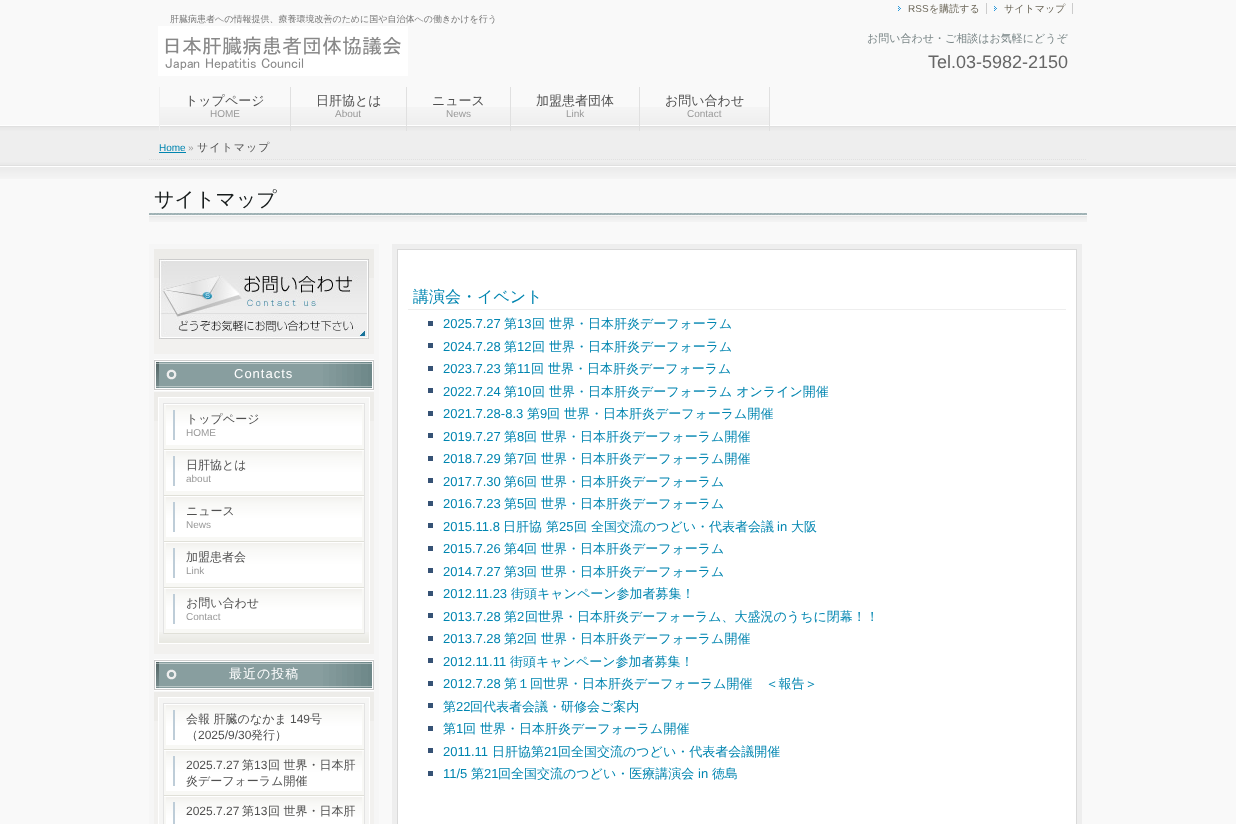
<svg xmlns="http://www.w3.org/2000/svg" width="1236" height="824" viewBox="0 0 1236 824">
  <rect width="100%" height="100%" fill="rgb(249,249,249)"/>
  <image x="0" y="125" width="1236" height="54" href="pic1.png"/>
  <image x="898" y="6" width="3" height="5" href="pic2.png"/>
  <text x="908" y="12" font-family="Liberation Sans" font-size="10" fill="rgb(108,103,89)">RSS</text>
  <text x="929" y="12" font-family="WenQuanYi Zen Hei" font-size="10" font-weight="500" fill="rgb(108,103,89)">を購読する</text>
  <rect x="986" y="3" width="1" height="11" fill="rgb(204,204,204)"/>
  <image x="994" y="6" width="3" height="5" href="pic2.png"/>
  <text x="1004" y="12" font-family="WenQuanYi Zen Hei" font-size="10" font-weight="500" fill="rgb(108,103,89)">サイトマップ</text>
  <rect x="1072" y="3" width="1" height="11" fill="rgb(204,204,204)"/>
  <text x="170" y="22" font-family="WenQuanYi Zen Hei" font-size="9" font-weight="500" fill="rgb(119,119,119)">肝臓病患者への情報提供、療養環境改善のために国や自治体への働きかけを行う</text>
  <image x="158" y="26" width="250" height="50" href="pic3.png"/>
  <text x="867" y="42" font-family="WenQuanYi Zen Hei" font-size="11" font-weight="500" fill="rgb(122,134,135)">お問い合わせ・ご相談はお気軽にどうぞ</text>
  <text x="928" y="68" font-family="Liberation Sans" font-size="18" fill="rgb(102,102,102)">Tel.03-5982-2150</text>
  <rect x="159" y="87" width="1" height="44" fill="rgb(240,240,240)"/>
  <image x="160" y="107" width="130" height="18" href="pic4.png"/>
  <rect x="290" y="87" width="1" height="44" fill="rgb(224,224,224)"/>
  <text x="185" y="105" font-family="WenQuanYi Zen Hei" font-size="13" font-weight="500" fill="rgb(80,80,80)">トップページ</text>
  <text x="210" y="117" font-family="Liberation Sans" font-size="10" fill="rgb(153,153,153)">HOME</text>
  <image x="291" y="107" width="115" height="18" href="pic5.png"/>
  <rect x="406" y="87" width="1" height="44" fill="rgb(224,224,224)"/>
  <text x="316" y="105" font-family="WenQuanYi Zen Hei" font-size="13" font-weight="500" fill="rgb(80,80,80)">日肝協とは</text>
  <text x="335" y="117" font-family="Liberation Sans" font-size="10" fill="rgb(153,153,153)">About</text>
  <image x="407" y="107" width="103" height="18" href="pic6.png"/>
  <rect x="510" y="87" width="1" height="44" fill="rgb(224,224,224)"/>
  <text x="432" y="105" font-family="WenQuanYi Zen Hei" font-size="13" font-weight="500" fill="rgb(80,80,80)">ニュース</text>
  <text x="446" y="117" font-family="Liberation Sans" font-size="10" fill="rgb(153,153,153)">News</text>
  <image x="511" y="107" width="128" height="18" href="pic7.png"/>
  <rect x="639" y="87" width="1" height="44" fill="rgb(224,224,224)"/>
  <text x="536" y="105" font-family="WenQuanYi Zen Hei" font-size="13" font-weight="500" fill="rgb(80,80,80)">加盟患者団体</text>
  <text x="566" y="117" font-family="Liberation Sans" font-size="10" fill="rgb(153,153,153)">Link</text>
  <image x="640" y="107" width="129" height="18" href="pic8.png"/>
  <rect x="769" y="87" width="1" height="44" fill="rgb(224,224,224)"/>
  <text x="665" y="105" font-family="WenQuanYi Zen Hei" font-size="13" font-weight="500" fill="rgb(80,80,80)">お問い合わせ</text>
  <text x="687" y="117" font-family="Liberation Sans" font-size="10" fill="rgb(153,153,153)">Contact</text>
  <path d="M149 159.5H1087" fill="none" stroke="rgb(225,225,225)" stroke-dasharray="1 1"/>
  <text x="159" y="151" font-family="Liberation Sans" font-size="10" fill="rgb(0,133,176)">Home</text>
  <rect x="159" y="152" width="27" height="1" fill="rgb(0,133,176)"/>
  <text x="188" y="151" font-family="Liberation Sans" font-size="10" fill="rgb(153,153,153)">»</text>
  <text x="197" y="151" font-family="WenQuanYi Zen Hei" font-size="11" font-weight="500" letter-spacing="1" fill="rgb(80,80,80)">サイトマップ</text>
  <image x="149" y="213" width="938" height="9" href="pic9.png"/>
  <text x="154" y="206" font-family="WenQuanYi Zen Hei" font-size="20" font-weight="500" fill="rgb(21,26,26)">サイトマップ</text>
  <rect x="149" y="244" width="230" height="580" fill="rgb(246,246,246)"/>
  <rect x="154" y="278" width="220" height="76" fill="rgb(242,241,239)"/>
  <rect x="154" y="249" width="220" height="29" fill="rgb(237,236,233)"/>
  <image x="159" y="259" width="210" height="80" href="pic10.png"/>
  <image x="154" y="359" width="220" height="32" href="pic11.png"/>
  <text x="234" y="378" font-family="Liberation Sans" font-size="13" letter-spacing="1" fill="rgb(255,255,255)">Contacts</text>
  <rect x="154" y="421" width="220" height="233" fill="rgb(242,241,239)"/>
  <rect x="154" y="392" width="220" height="29" fill="rgb(237,236,233)"/>
  <rect x="159" y="398" width="210" height="234" fill="rgb(245,245,244)"/>
  <image x="159" y="632" width="210" height="12" href="pic12.png"/>
  <rect x="158" y="397" width="212" height="1" fill="rgb(255,255,255)"/>
  <rect x="369" y="397" width="1" height="247" fill="rgb(255,255,255)"/>
  <rect x="158" y="397" width="1" height="247" fill="rgb(255,255,255)"/>
  <rect x="163" y="403" width="202" height="1" fill="rgb(227,227,227)"/>
  <rect x="364" y="403" width="1" height="231" fill="rgb(227,227,227)"/>
  <rect x="163" y="403" width="1" height="231" fill="rgb(227,227,227)"/>
  <rect x="164" y="405" width="200" height="44" fill="rgb(248,248,245)"/>
  <image x="166" y="405" width="196" height="40" href="pic13.png"/>
  <rect x="164" y="404" width="200" height="1" fill="rgb(255,255,255)"/>
  <rect x="164" y="449" width="200" height="1" fill="rgb(224,224,216)"/>
  <text x="186" y="423" font-family="WenQuanYi Zen Hei" font-size="12" font-weight="500" fill="rgb(80,80,80)">トップページ</text>
  <text x="186" y="436" font-family="Liberation Sans" font-size="10" fill="rgb(153,153,153)">HOME</text>
  <rect x="164" y="451" width="200" height="44" fill="rgb(248,248,245)"/>
  <image x="166" y="451" width="196" height="40" href="pic13.png"/>
  <rect x="164" y="450" width="200" height="1" fill="rgb(255,255,255)"/>
  <rect x="164" y="495" width="200" height="1" fill="rgb(224,224,216)"/>
  <text x="186" y="469" font-family="WenQuanYi Zen Hei" font-size="12" font-weight="500" fill="rgb(80,80,80)">日肝協とは</text>
  <text x="186" y="482" font-family="Liberation Sans" font-size="10" fill="rgb(153,153,153)">about</text>
  <rect x="164" y="497" width="200" height="44" fill="rgb(248,248,245)"/>
  <image x="166" y="497" width="196" height="40" href="pic13.png"/>
  <rect x="164" y="496" width="200" height="1" fill="rgb(255,255,255)"/>
  <rect x="164" y="541" width="200" height="1" fill="rgb(224,224,216)"/>
  <text x="186" y="515" font-family="WenQuanYi Zen Hei" font-size="12" font-weight="500" fill="rgb(80,80,80)">ニュース</text>
  <text x="186" y="528" font-family="Liberation Sans" font-size="10" fill="rgb(153,153,153)">News</text>
  <rect x="164" y="543" width="200" height="44" fill="rgb(248,248,245)"/>
  <image x="166" y="543" width="196" height="40" href="pic13.png"/>
  <rect x="164" y="542" width="200" height="1" fill="rgb(255,255,255)"/>
  <rect x="164" y="587" width="200" height="1" fill="rgb(224,224,216)"/>
  <text x="186" y="561" font-family="WenQuanYi Zen Hei" font-size="12" font-weight="500" fill="rgb(80,80,80)">加盟患者会</text>
  <text x="186" y="574" font-family="Liberation Sans" font-size="10" fill="rgb(153,153,153)">Link</text>
  <rect x="164" y="589" width="200" height="44" fill="rgb(248,248,245)"/>
  <image x="166" y="589" width="196" height="40" href="pic13.png"/>
  <rect x="164" y="588" width="200" height="1" fill="rgb(255,255,255)"/>
  <rect x="164" y="633" width="200" height="1" fill="rgb(224,224,216)"/>
  <text x="186" y="607" font-family="WenQuanYi Zen Hei" font-size="12" font-weight="500" fill="rgb(80,80,80)">お問い合わせ</text>
  <text x="186" y="620" font-family="Liberation Sans" font-size="10" fill="rgb(153,153,153)">Contact</text>
  <image x="154" y="659" width="220" height="32" href="pic11.png"/>
  <text x="229" y="678" font-family="WenQuanYi Zen Hei" font-size="13" font-weight="500" letter-spacing="1" fill="rgb(255,255,255)">最近の投稿</text>
  <rect x="154" y="721" width="220" height="103" fill="rgb(242,241,239)"/>
  <rect x="154" y="692" width="220" height="29" fill="rgb(237,236,233)"/>
  <rect x="159" y="698" width="210" height="126" fill="rgb(245,245,244)"/>
  <rect x="158" y="697" width="212" height="1" fill="rgb(255,255,255)"/>
  <rect x="369" y="697" width="1" height="127" fill="rgb(255,255,255)"/>
  <rect x="158" y="697" width="1" height="127" fill="rgb(255,255,255)"/>
  <rect x="163" y="703" width="202" height="1" fill="rgb(227,227,227)"/>
  <rect x="364" y="703" width="1" height="121" fill="rgb(227,227,227)"/>
  <rect x="163" y="703" width="1" height="121" fill="rgb(227,227,227)"/>
  <rect x="164" y="705" width="200" height="44" fill="rgb(248,248,245)"/>
  <image x="166" y="705" width="196" height="40" href="pic13.png"/>
  <rect x="164" y="704" width="200" height="1" fill="rgb(255,255,255)"/>
  <rect x="164" y="749" width="200" height="1" fill="rgb(224,224,216)"/>
  <text x="186" y="723" font-family="WenQuanYi Zen Hei" font-size="12" font-weight="500" fill="rgb(80,80,80)">会報 肝臓のなかま</text>
  <text x="290" y="723" font-family="Liberation Sans" font-size="12" fill="rgb(80,80,80)">149</text>
  <g font-family="WenQuanYi Zen Hei" font-size="12" font-weight="500" fill="rgb(80,80,80)">
    <text x="310" y="723">号</text>
    <text x="186" y="739">（</text>
  </g>
  <text x="198" y="739" font-family="Liberation Sans" font-size="12" fill="rgb(80,80,80)">2025/9/30</text>
  <text x="251" y="739" font-family="WenQuanYi Zen Hei" font-size="12" font-weight="500" fill="rgb(80,80,80)">発行）</text>
  <rect x="164" y="751" width="200" height="44" fill="rgb(248,248,245)"/>
  <image x="166" y="751" width="196" height="40" href="pic13.png"/>
  <rect x="164" y="750" width="200" height="1" fill="rgb(255,255,255)"/>
  <rect x="164" y="795" width="200" height="1" fill="rgb(224,224,216)"/>
  <text x="186" y="769" font-family="Liberation Sans" font-size="12" fill="rgb(80,80,80)">2025.7.27</text>
  <text x="242" y="769" font-family="WenQuanYi Zen Hei" font-size="12" font-weight="500" fill="rgb(80,80,80)">第</text>
  <text x="254" y="769" font-family="Liberation Sans" font-size="12" fill="rgb(80,80,80)">13</text>
  <g font-family="WenQuanYi Zen Hei" font-size="12" font-weight="500" fill="rgb(80,80,80)">
    <text x="268" y="769">回 世界・日本肝</text>
    <text x="186" y="785">炎デーフォーラム開催</text>
  </g>
  <rect x="164" y="797" width="200" height="27" fill="rgb(248,248,245)"/>
  <image x="166" y="797" width="196" height="27" href="pic14.png"/>
  <rect x="164" y="796" width="200" height="1" fill="rgb(255,255,255)"/>
  <text x="186" y="815" font-family="Liberation Sans" font-size="12" fill="rgb(80,80,80)">2025.7.27</text>
  <text x="242" y="815" font-family="WenQuanYi Zen Hei" font-size="12" font-weight="500" fill="rgb(80,80,80)">第</text>
  <text x="254" y="815" font-family="Liberation Sans" font-size="12" fill="rgb(80,80,80)">13</text>
  <text x="268" y="815" font-family="WenQuanYi Zen Hei" font-size="12" font-weight="500" fill="rgb(80,80,80)">回 世界・日本肝</text>
  <rect x="392" y="244" width="690" height="580" fill="rgb(238,238,238)"/>
  <rect x="397.5" y="249.5" width="679" height="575" fill="rgb(255,255,255)" stroke="rgb(217,217,217)"/>
  <rect x="408" y="309" width="658" height="1" fill="rgb(238,238,238)"/>
  <text x="413" y="302" font-family="WenQuanYi Zen Hei" font-size="16" font-weight="500" fill="rgb(0,133,176)">講演会・イベント</text>
  <rect x="428" y="321" width="5" height="5" fill="rgb(54,82,117)"/>
  <text x="443" y="328" font-family="Liberation Sans" font-size="13" fill="rgb(0,133,176)">2025.7.27</text>
  <text x="504" y="328" font-family="WenQuanYi Zen Hei" font-size="13" font-weight="500" fill="rgb(0,133,176)">第</text>
  <text x="517" y="328" font-family="Liberation Sans" font-size="13" fill="rgb(0,133,176)">13</text>
  <text x="532" y="328" font-family="WenQuanYi Zen Hei" font-size="13" font-weight="500" fill="rgb(0,133,176)">回 世界・日本肝炎デーフォーラム</text>
  <rect x="428" y="343" width="5" height="5" fill="rgb(54,82,117)"/>
  <text x="443" y="351" font-family="Liberation Sans" font-size="13" fill="rgb(0,133,176)">2024.7.28</text>
  <text x="504" y="351" font-family="WenQuanYi Zen Hei" font-size="13" font-weight="500" fill="rgb(0,133,176)">第</text>
  <text x="517" y="351" font-family="Liberation Sans" font-size="13" fill="rgb(0,133,176)">12</text>
  <text x="532" y="351" font-family="WenQuanYi Zen Hei" font-size="13" font-weight="500" fill="rgb(0,133,176)">回 世界・日本肝炎デーフォーラム</text>
  <rect x="428" y="366" width="5" height="5" fill="rgb(54,82,117)"/>
  <text x="443" y="373" font-family="Liberation Sans" font-size="13" fill="rgb(0,133,176)">2023.7.23</text>
  <text x="504" y="373" font-family="WenQuanYi Zen Hei" font-size="13" font-weight="500" fill="rgb(0,133,176)">第</text>
  <text x="517" y="373" font-family="Liberation Sans" font-size="13" fill="rgb(0,133,176)">11</text>
  <text x="531" y="373" font-family="WenQuanYi Zen Hei" font-size="13" font-weight="500" fill="rgb(0,133,176)">回 世界・日本肝炎デーフォーラム</text>
  <rect x="428" y="388" width="5" height="5" fill="rgb(54,82,117)"/>
  <text x="443" y="396" font-family="Liberation Sans" font-size="13" fill="rgb(0,133,176)">2022.7.24</text>
  <text x="504" y="396" font-family="WenQuanYi Zen Hei" font-size="13" font-weight="500" fill="rgb(0,133,176)">第</text>
  <text x="517" y="396" font-family="Liberation Sans" font-size="13" fill="rgb(0,133,176)">10</text>
  <text x="532" y="396" font-family="WenQuanYi Zen Hei" font-size="13" font-weight="500" fill="rgb(0,133,176)">回 世界・日本肝炎デーフォーラム オンライン開催</text>
  <rect x="428" y="411" width="5" height="5" fill="rgb(54,82,117)"/>
  <text x="443" y="418" font-family="Liberation Sans" font-size="13" fill="rgb(0,133,176)">2021.7.28-8.3</text>
  <text x="527" y="418" font-family="WenQuanYi Zen Hei" font-size="13" font-weight="500" fill="rgb(0,133,176)">第</text>
  <text x="540" y="418" font-family="Liberation Sans" font-size="13" fill="rgb(0,133,176)">9</text>
  <text x="547" y="418" font-family="WenQuanYi Zen Hei" font-size="13" font-weight="500" fill="rgb(0,133,176)">回 世界・日本肝炎デーフォーラム開催</text>
  <rect x="428" y="433" width="5" height="5" fill="rgb(54,82,117)"/>
  <text x="443" y="441" font-family="Liberation Sans" font-size="13" fill="rgb(0,133,176)">2019.7.27</text>
  <text x="504" y="441" font-family="WenQuanYi Zen Hei" font-size="13" font-weight="500" fill="rgb(0,133,176)">第</text>
  <text x="517" y="441" font-family="Liberation Sans" font-size="13" fill="rgb(0,133,176)">8</text>
  <text x="524" y="441" font-family="WenQuanYi Zen Hei" font-size="13" font-weight="500" fill="rgb(0,133,176)">回 世界・日本肝炎デーフォーラム開催</text>
  <rect x="428" y="456" width="5" height="5" fill="rgb(54,82,117)"/>
  <text x="443" y="463" font-family="Liberation Sans" font-size="13" fill="rgb(0,133,176)">2018.7.29</text>
  <text x="504" y="463" font-family="WenQuanYi Zen Hei" font-size="13" font-weight="500" fill="rgb(0,133,176)">第</text>
  <text x="517" y="463" font-family="Liberation Sans" font-size="13" fill="rgb(0,133,176)">7</text>
  <text x="524" y="463" font-family="WenQuanYi Zen Hei" font-size="13" font-weight="500" fill="rgb(0,133,176)">回 世界・日本肝炎デーフォーラム開催</text>
  <rect x="428" y="478" width="5" height="5" fill="rgb(54,82,117)"/>
  <text x="443" y="486" font-family="Liberation Sans" font-size="13" fill="rgb(0,133,176)">2017.7.30</text>
  <text x="504" y="486" font-family="WenQuanYi Zen Hei" font-size="13" font-weight="500" fill="rgb(0,133,176)">第</text>
  <text x="517" y="486" font-family="Liberation Sans" font-size="13" fill="rgb(0,133,176)">6</text>
  <text x="524" y="486" font-family="WenQuanYi Zen Hei" font-size="13" font-weight="500" fill="rgb(0,133,176)">回 世界・日本肝炎デーフォーラム</text>
  <rect x="428" y="501" width="5" height="5" fill="rgb(54,82,117)"/>
  <text x="443" y="508" font-family="Liberation Sans" font-size="13" fill="rgb(0,133,176)">2016.7.23</text>
  <text x="504" y="508" font-family="WenQuanYi Zen Hei" font-size="13" font-weight="500" fill="rgb(0,133,176)">第</text>
  <text x="517" y="508" font-family="Liberation Sans" font-size="13" fill="rgb(0,133,176)">5</text>
  <text x="524" y="508" font-family="WenQuanYi Zen Hei" font-size="13" font-weight="500" fill="rgb(0,133,176)">回 世界・日本肝炎デーフォーラム</text>
  <rect x="428" y="523" width="5" height="5" fill="rgb(54,82,117)"/>
  <text x="443" y="531" font-family="Liberation Sans" font-size="13" fill="rgb(0,133,176)">2015.11.8</text>
  <text x="503" y="531" font-family="WenQuanYi Zen Hei" font-size="13" font-weight="500" fill="rgb(0,133,176)">日肝協 第</text>
  <text x="559" y="531" font-family="Liberation Sans" font-size="13" fill="rgb(0,133,176)">25</text>
  <text x="574" y="531" font-family="WenQuanYi Zen Hei" font-size="13" font-weight="500" fill="rgb(0,133,176)">回 全国交流のつどい・代表者会議</text>
  <text x="777" y="531" font-family="Liberation Sans" font-size="13" fill="rgb(0,133,176)">in</text>
  <text x="791" y="531" font-family="WenQuanYi Zen Hei" font-size="13" font-weight="500" fill="rgb(0,133,176)">大阪</text>
  <rect x="428" y="546" width="5" height="5" fill="rgb(54,82,117)"/>
  <text x="443" y="553" font-family="Liberation Sans" font-size="13" fill="rgb(0,133,176)">2015.7.26</text>
  <text x="504" y="553" font-family="WenQuanYi Zen Hei" font-size="13" font-weight="500" fill="rgb(0,133,176)">第</text>
  <text x="517" y="553" font-family="Liberation Sans" font-size="13" fill="rgb(0,133,176)">4</text>
  <text x="524" y="553" font-family="WenQuanYi Zen Hei" font-size="13" font-weight="500" fill="rgb(0,133,176)">回 世界・日本肝炎デーフォーラム</text>
  <rect x="428" y="568" width="5" height="5" fill="rgb(54,82,117)"/>
  <text x="443" y="576" font-family="Liberation Sans" font-size="13" fill="rgb(0,133,176)">2014.7.27</text>
  <text x="504" y="576" font-family="WenQuanYi Zen Hei" font-size="13" font-weight="500" fill="rgb(0,133,176)">第</text>
  <text x="517" y="576" font-family="Liberation Sans" font-size="13" fill="rgb(0,133,176)">3</text>
  <text x="524" y="576" font-family="WenQuanYi Zen Hei" font-size="13" font-weight="500" fill="rgb(0,133,176)">回 世界・日本肝炎デーフォーラム</text>
  <rect x="428" y="591" width="5" height="5" fill="rgb(54,82,117)"/>
  <text x="443" y="598" font-family="Liberation Sans" font-size="13" fill="rgb(0,133,176)">2012.11.23</text>
  <text x="511" y="598" font-family="WenQuanYi Zen Hei" font-size="13" font-weight="500" fill="rgb(0,133,176)">街頭キャンペーン参加者募集！</text>
  <rect x="428" y="613" width="5" height="5" fill="rgb(54,82,117)"/>
  <text x="443" y="621" font-family="Liberation Sans" font-size="13" fill="rgb(0,133,176)">2013.7.28</text>
  <text x="504" y="621" font-family="WenQuanYi Zen Hei" font-size="13" font-weight="500" fill="rgb(0,133,176)">第</text>
  <text x="517" y="621" font-family="Liberation Sans" font-size="13" fill="rgb(0,133,176)">2</text>
  <text x="525" y="621" font-family="WenQuanYi Zen Hei" font-size="13" font-weight="500" fill="rgb(0,133,176)">回世界・日本肝炎デーフォーラム、大盛況のうちに閉幕！！</text>
  <rect x="428" y="636" width="5" height="5" fill="rgb(54,82,117)"/>
  <text x="443" y="643" font-family="Liberation Sans" font-size="13" fill="rgb(0,133,176)">2013.7.28</text>
  <text x="504" y="643" font-family="WenQuanYi Zen Hei" font-size="13" font-weight="500" fill="rgb(0,133,176)">第</text>
  <text x="517" y="643" font-family="Liberation Sans" font-size="13" fill="rgb(0,133,176)">2</text>
  <text x="524" y="643" font-family="WenQuanYi Zen Hei" font-size="13" font-weight="500" fill="rgb(0,133,176)">回 世界・日本肝炎デーフォーラム開催</text>
  <rect x="428" y="658" width="5" height="5" fill="rgb(54,82,117)"/>
  <text x="443" y="666" font-family="Liberation Sans" font-size="13" fill="rgb(0,133,176)">2012.11.11</text>
  <text x="510" y="666" font-family="WenQuanYi Zen Hei" font-size="13" font-weight="500" fill="rgb(0,133,176)">街頭キャンペーン参加者募集！</text>
  <rect x="428" y="681" width="5" height="5" fill="rgb(54,82,117)"/>
  <text x="443" y="688" font-family="Liberation Sans" font-size="13" fill="rgb(0,133,176)">2012.7.28</text>
  <text x="504" y="688" font-family="WenQuanYi Zen Hei" font-size="13" font-weight="500" fill="rgb(0,133,176)">第１回世界・日本肝炎デーフォーラム開催　＜報告＞</text>
  <rect x="428" y="703" width="5" height="5" fill="rgb(54,82,117)"/>
  <text x="443" y="711" font-family="WenQuanYi Zen Hei" font-size="13" font-weight="500" fill="rgb(0,133,176)">第</text>
  <text x="456" y="711" font-family="Liberation Sans" font-size="13" fill="rgb(0,133,176)">22</text>
  <text x="470" y="711" font-family="WenQuanYi Zen Hei" font-size="13" font-weight="500" fill="rgb(0,133,176)">回代表者会議・研修会ご案内</text>
  <rect x="428" y="726" width="5" height="5" fill="rgb(54,82,117)"/>
  <text x="443" y="733" font-family="WenQuanYi Zen Hei" font-size="13" font-weight="500" fill="rgb(0,133,176)">第</text>
  <text x="456" y="733" font-family="Liberation Sans" font-size="13" fill="rgb(0,133,176)">1</text>
  <text x="463" y="733" font-family="WenQuanYi Zen Hei" font-size="13" font-weight="500" fill="rgb(0,133,176)">回 世界・日本肝炎デーフォーラム開催</text>
  <rect x="428" y="748" width="5" height="5" fill="rgb(54,82,117)"/>
  <text x="443" y="756" font-family="Liberation Sans" font-size="13" fill="rgb(0,133,176)">2011.11</text>
  <text x="492" y="756" font-family="WenQuanYi Zen Hei" font-size="13" font-weight="500" fill="rgb(0,133,176)">日肝協第</text>
  <text x="544" y="756" font-family="Liberation Sans" font-size="13" fill="rgb(0,133,176)">21</text>
  <text x="558" y="756" font-family="WenQuanYi Zen Hei" font-size="13" font-weight="500" fill="rgb(0,133,176)">回全国交流のつどい・代表者会議開催</text>
  <rect x="428" y="771" width="5" height="5" fill="rgb(54,82,117)"/>
  <text x="443" y="778" font-family="Liberation Sans" font-size="13" fill="rgb(0,133,176)">11/5</text>
  <text x="471" y="778" font-family="WenQuanYi Zen Hei" font-size="13" font-weight="500" fill="rgb(0,133,176)">第</text>
  <text x="484" y="778" font-family="Liberation Sans" font-size="13" fill="rgb(0,133,176)">21</text>
  <text x="498" y="778" font-family="WenQuanYi Zen Hei" font-size="13" font-weight="500" fill="rgb(0,133,176)">回全国交流のつどい・医療講演会</text>
  <text x="698" y="778" font-family="Liberation Sans" font-size="13" fill="rgb(0,133,176)">in</text>
  <text x="712" y="778" font-family="WenQuanYi Zen Hei" font-size="13" font-weight="500" fill="rgb(0,133,176)">徳島</text>
</svg>
